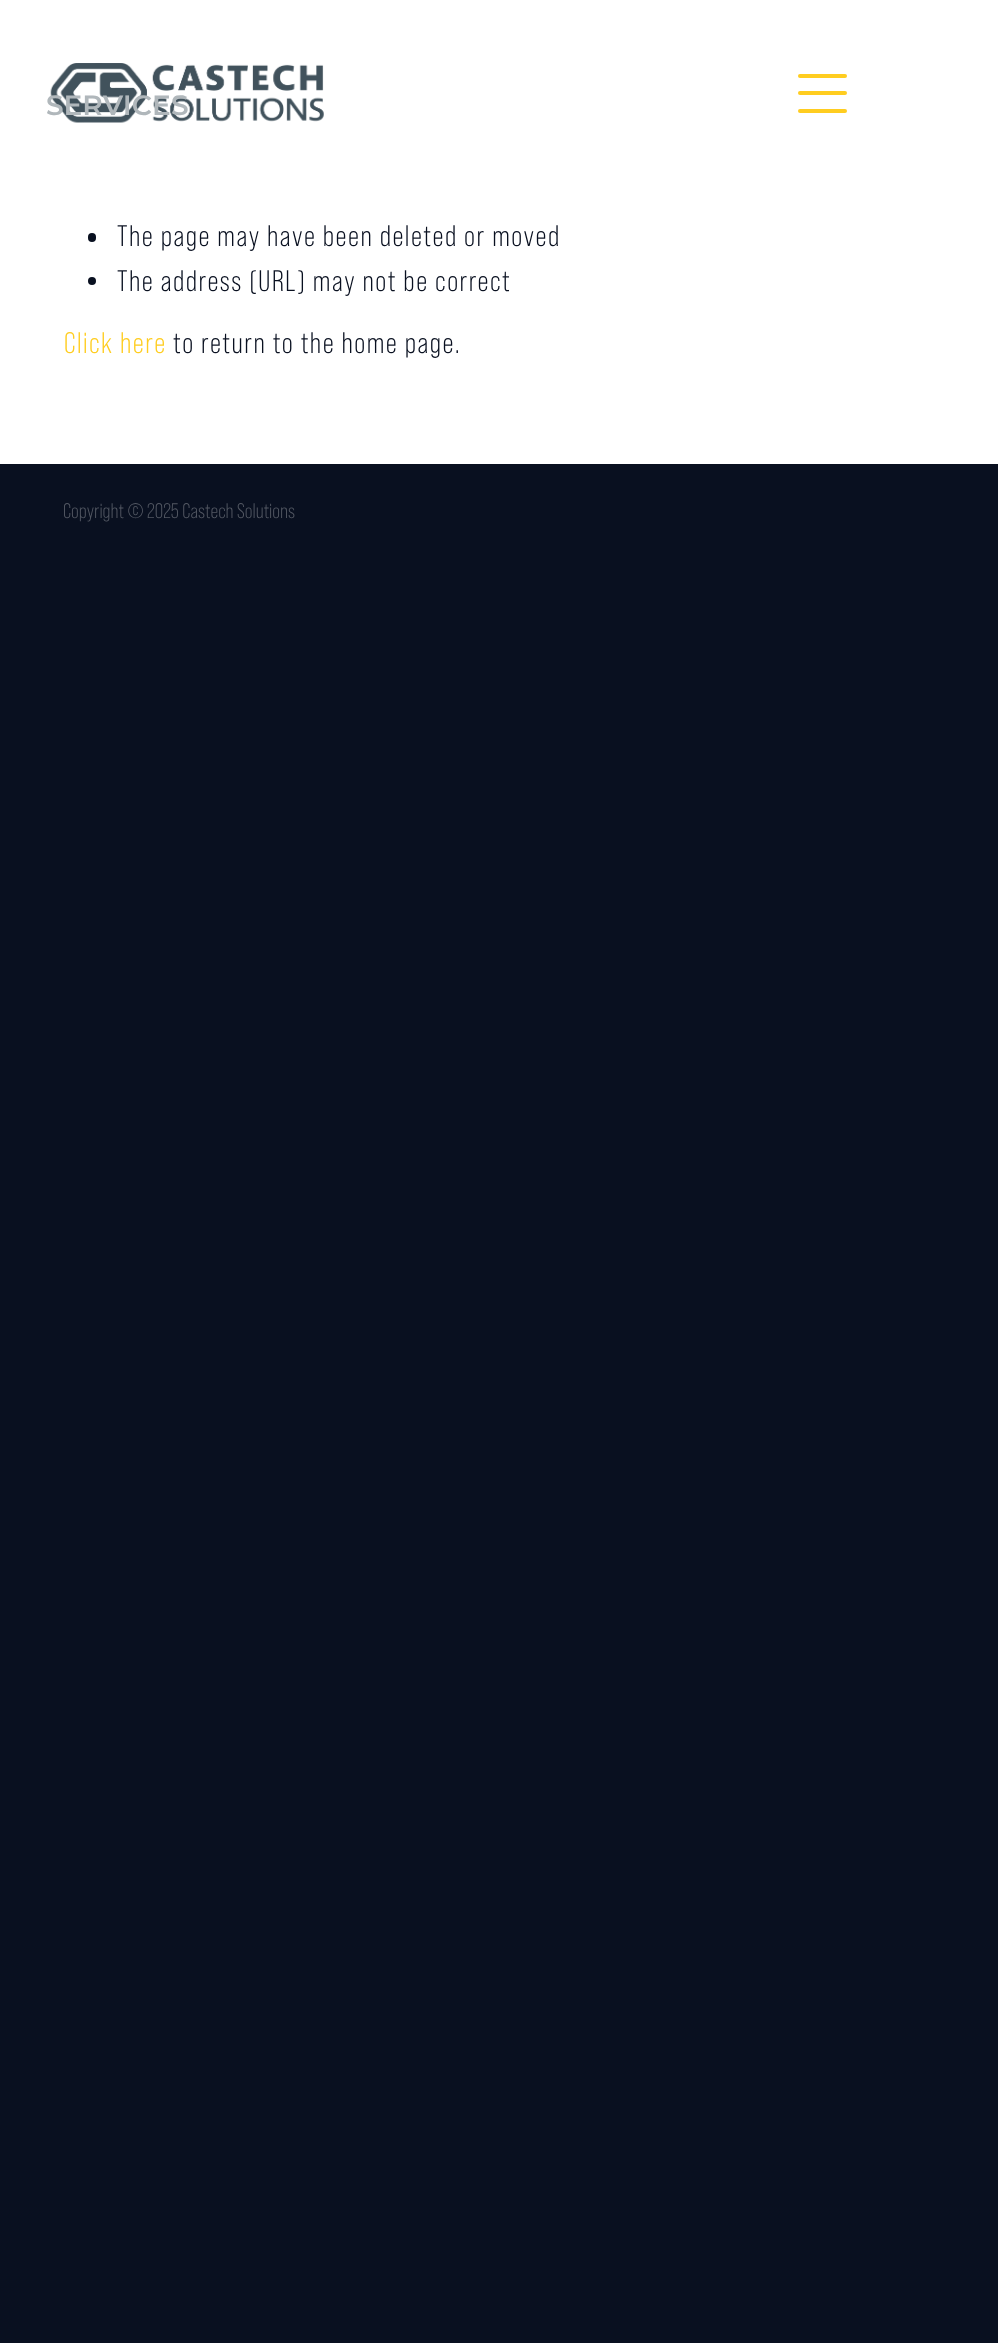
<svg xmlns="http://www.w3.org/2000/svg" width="998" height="2343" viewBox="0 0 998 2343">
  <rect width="100%" height="100%" fill="rgb(255,255,255)"/>
  <image x="50" y="63" width="274" height="60" href="pic1.png"/>
  <rect x="798" y="91" width="49" height="4" rx="2" fill="rgb(255,205,32)"/>
  <rect x="798" y="74" width="49" height="4" rx="2" fill="rgb(255,205,32)"/>
  <rect x="798" y="109" width="49" height="4" rx="2" fill="rgb(255,205,32)"/>
  <text x="46" y="115" font-family="Montserrat" font-size="28" font-weight="600" fill="rgb(176,183,187)">SERVICES</text>
  <rect x="88" y="233" width="8" height="9" rx="4" fill="rgb(9,16,32)"/>
  <text x="117" y="246" font-family="Bebas Neue" font-size="29.75" letter-spacing="1.5" fill="rgb(9,16,32)">The page may have been deleted or moved</text>
  <circle cx="92" cy="281" r="4" fill="rgb(9,16,32)"/>
  <text x="117" y="291" font-family="Bebas Neue" font-size="29.75" letter-spacing="1.5" fill="rgb(9,16,32)">The address (URL) may not be correct</text>
  <text x="64" y="353" font-family="Bebas Neue" font-size="29.75" letter-spacing="1.5" fill="rgb(255,205,32)">Click here</text>
  <text x="173" y="353" font-family="Bebas Neue" font-size="29.75" letter-spacing="1.5" fill="rgb(9,16,32)">to return to the home page.</text>
  <path d="M-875 464V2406H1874V464H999V656H0V464Z" fill="rgb(9,16,32)"/>
  <rect x="0" y="464" width="998" height="192" fill="rgb(9,16,32)"/>
  <text x="63" y="518" font-family="Bebas Neue" font-size="21" fill="rgb(83,88,99)">Copyright © 2025 Castech Solutions</text>
</svg>
